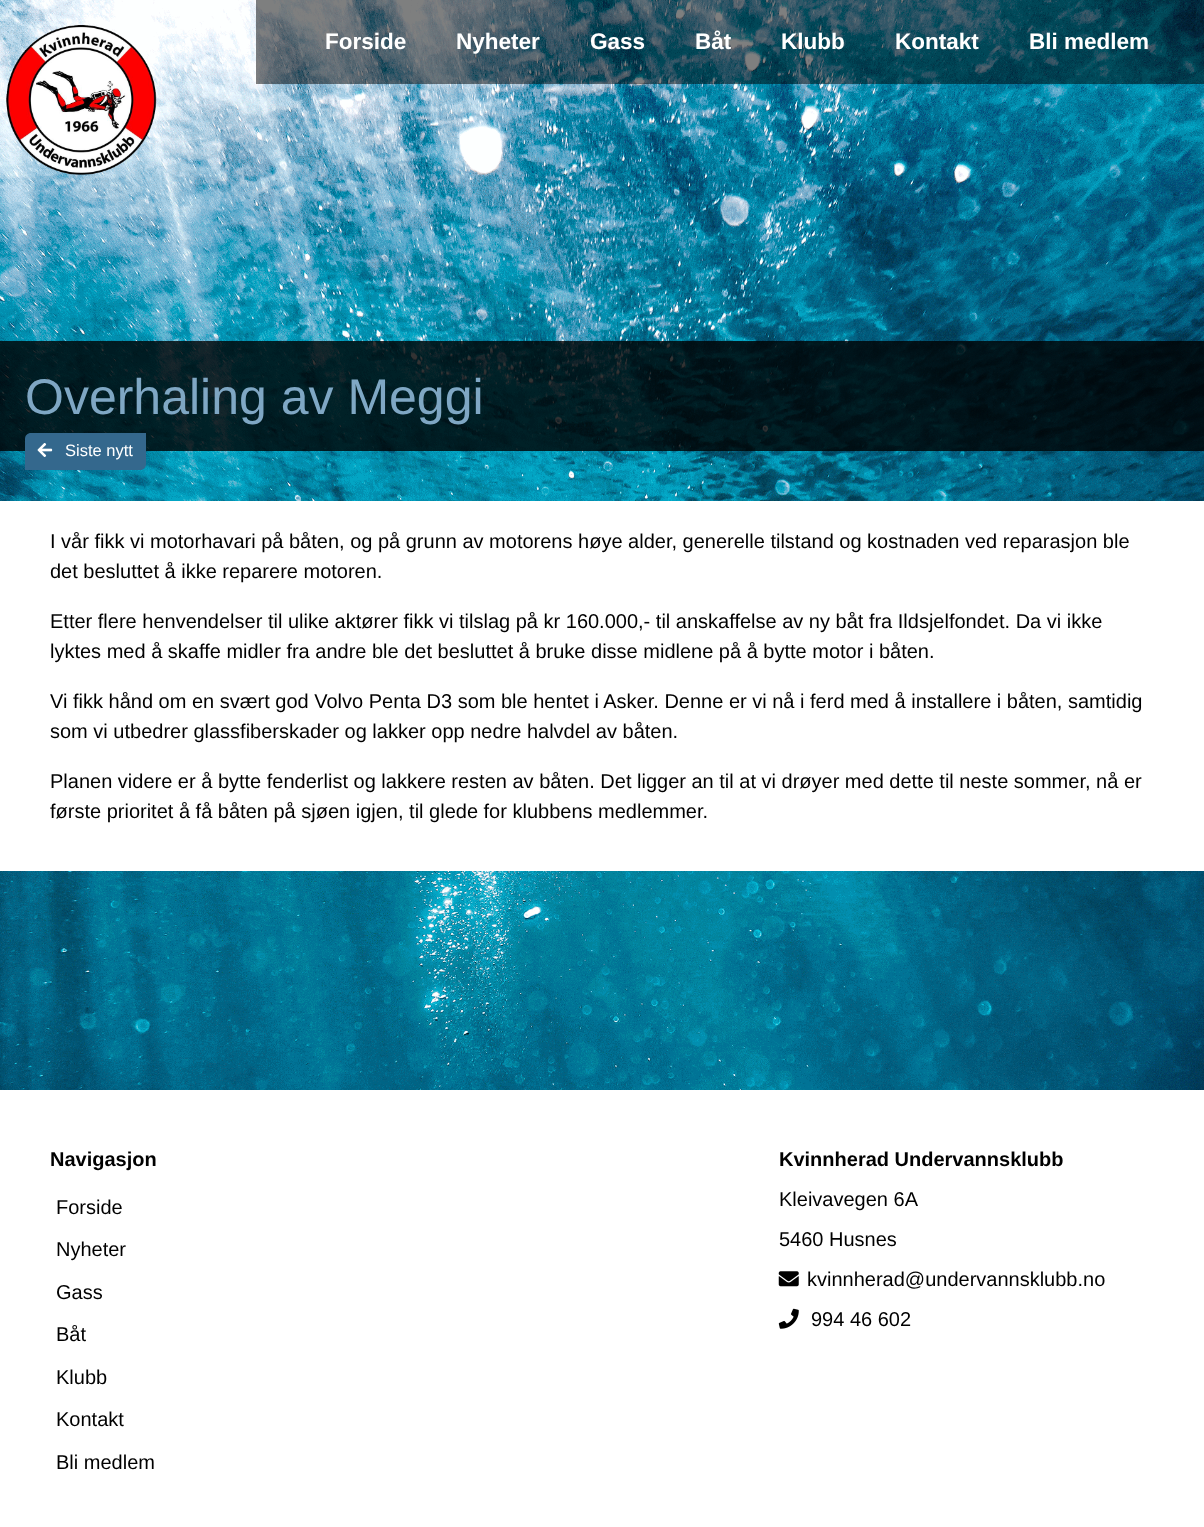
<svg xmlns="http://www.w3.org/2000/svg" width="1204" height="1527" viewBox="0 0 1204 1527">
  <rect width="100%" height="100%" fill="rgb(255,255,255)"/>
  <image x="0" y="0" width="1204" height="1090" href="pic1.png"/>
  <image x="6" y="25" width="151" height="150" href="pic2.png"/>
  <rect x="256" y="0" width="948" height="84" fill="rgba(0,0,0,0.5)"/>
  <g font-family="Liberation Sans" font-size="22.5" font-weight="bold" fill="rgb(255,255,255)">
    <text x="325" y="49">Forside</text>
    <text x="456" y="49">Nyheter</text>
    <text x="590" y="49">Gass</text>
    <text x="695" y="49">Båt</text>
    <text x="781" y="49">Klubb</text>
    <text x="895" y="49">Kontakt</text>
    <text x="1029" y="49">Bli medlem</text>
  </g>
  <rect x="0" y="341" width="1204" height="110" fill="rgba(0,0,0,0.8)"/>
  <text x="25" y="414" font-family="Liberation Sans" font-size="50" fill="rgb(127,167,196)">Overhaling av Meggi</text>
  <path d="M31 433H146V464C146 467.5 143.5 470 140 470H25V439C25 435.5 27.5 433 31 433Z" fill="rgb(52,104,141)"/>
  <image x="37" y="443" width="16" height="14" href="pic3.png"/>
  <text x="65" y="456" font-family="Liberation Sans" font-size="16.5" fill="rgb(255,255,255)">Siste nytt</text>
  <rect x="0" y="501" width="1204" height="370" fill="rgb(255,255,255)"/>
  <g font-family="Liberation Sans" font-size="20" fill="rgb(0,0,0)">
    <text>
      <tspan x="50" y="548">I vår fikk vi motorhavari på båten, og på grunn av motorens høye alder, generelle tilstand og kostnaden ved reparasjon ble</tspan>
      <tspan x="50" y="578">det besluttet å ikke reparere motoren.</tspan>
    </text>
    <text>
      <tspan x="50" y="628">Etter flere henvendelser til ulike aktører fikk vi tilslag på kr 160.000,- til anskaffelse av ny båt fra Ildsjelfondet. Da vi ikke</tspan>
      <tspan x="50" y="658">lyktes med å skaffe midler fra andre ble det besluttet å bruke disse midlene på å bytte motor i båten.</tspan>
    </text>
    <text>
      <tspan x="50" y="708">Vi fikk hånd om en svært god Volvo Penta D3 som ble hentet i Asker. Denne er vi nå i ferd med å installere i båten, samtidig</tspan>
      <tspan x="50" y="738">som vi utbedrer glassfiberskader og lakker opp nedre halvdel av båten.</tspan>
    </text>
    <text>
      <tspan x="50" y="788">Planen videre er å bytte fenderlist og lakkere resten av båten. Det ligger an til at vi drøyer med dette til neste sommer, nå er</tspan>
      <tspan x="50" y="818">første prioritet å få båten på sjøen igjen, til glede for klubbens medlemmer.</tspan>
    </text>
  </g>
  <text x="50" y="1166" font-family="Liberation Sans" font-size="20" font-weight="bold" fill="rgb(0,0,0)">Navigasjon</text>
  <g font-family="Liberation Sans" font-size="20" fill="rgb(0,0,0)">
    <text x="56" y="1214">Forside</text>
    <text x="56" y="1256">Nyheter</text>
    <text x="56" y="1299">Gass</text>
    <text x="56" y="1341">Båt</text>
    <text x="56" y="1384">Klubb</text>
    <text x="56" y="1426">Kontakt</text>
    <text x="56" y="1469">Bli medlem</text>
  </g>
  <text x="779" y="1166" font-family="Liberation Sans" font-size="20" font-weight="bold" fill="rgb(0,0,0)">Kvinnherad Undervannsklubb</text>
  <g font-family="Liberation Sans" font-size="20" fill="rgb(0,0,0)">
    <text x="779" y="1206">Kleivavegen 6A</text>
    <text x="779" y="1246">5460 Husnes</text>
  </g>
  <image x="778" y="1271" width="21" height="16" href="pic4.png"/>
  <text x="807" y="1286" font-family="Liberation Sans" font-size="20" fill="rgb(0,0,0)">kvinnherad@undervannsklubb.no</text>
  <image x="778" y="1308" width="21" height="21" href="pic5.png"/>
  <text x="811" y="1326" font-family="Liberation Sans" font-size="20" fill="rgb(0,0,0)">994 46 602</text>
</svg>
